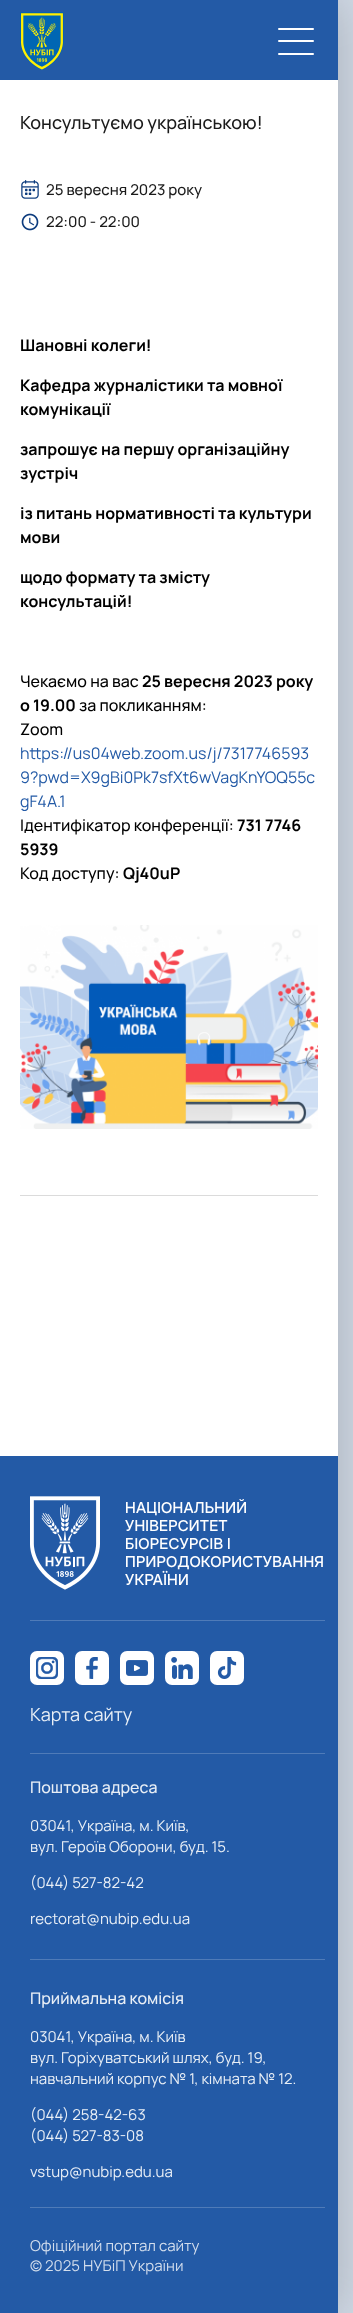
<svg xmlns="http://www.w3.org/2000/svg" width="353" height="2313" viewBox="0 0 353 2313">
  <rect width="100%" height="100%" fill="rgb(208,217,229)"/>
  <rect x="0" y="0" width="338" height="2313" fill="rgba(0,0,0,0.2)" filter="blur(25px)"/>
  <rect x="0" y="0" width="338" height="80" fill="rgb(35,90,166)"/>
  <image x="20" y="12" width="44" height="58" href="pic1.png"/>
  <rect x="278" y="28" width="36" height="2" rx="1" fill="rgb(255,255,255)"/>
  <rect x="278" y="40" width="36" height="2" rx="1" fill="rgb(255,255,255)"/>
  <rect x="278" y="53" width="36" height="2" rx="1" fill="rgb(255,255,255)"/>
  <rect x="0" y="80" width="338" height="1376" fill="rgb(255,255,255)"/>
  <text x="20" y="129" font-family="Manrope" font-size="18" font-weight="500" fill="rgb(27,27,27)">Консультуємо українською!</text>
  <image x="21" y="180" width="18" height="19" href="pic2.png"/>
  <text x="46" y="195" font-family="Manrope" font-size="15" font-weight="500" fill="rgb(27,27,27)">25 вересня 2023 року</text>
  <image x="21" y="213" width="18" height="18" href="pic3.png"/>
  <text x="46" y="227" font-family="Manrope" font-size="15" font-weight="500" fill="rgb(27,27,27)">22:00 - 22:00</text>
  <rect x="20" y="1195" width="298" height="1" fill="rgb(219,219,219)"/>
  <g font-family="Manrope" font-size="16" font-weight="bold" fill="rgb(0,0,0)">
    <text x="20" y="351">Шановні колеги!</text>
    <text>
      <tspan x="20" y="391">Кафедра журналістики та мовної</tspan>
      <tspan x="20" y="415">комунікації</tspan>
    </text>
    <text>
      <tspan x="20" y="455">запрошує на першу організаційну</tspan>
      <tspan x="20" y="479">зустріч</tspan>
    </text>
    <text>
      <tspan x="20" y="519">із питань нормативності та культури</tspan>
      <tspan x="20" y="543">мови</tspan>
    </text>
    <text>
      <tspan x="20" y="583">щодо формату та змісту</tspan>
      <tspan x="20" y="607">консультацій!</tspan>
    </text>
  </g>
  <text x="20" y="687" font-family="Manrope" font-size="16" font-weight="500" fill="rgb(0,0,0)">Чекаємо на вас</text>
  <g font-family="Manrope" font-size="16" font-weight="bold" fill="rgb(0,0,0)">
    <text x="142" y="687">25 вересня 2023 року</text>
    <text x="20" y="711">о 19.00</text>
  </g>
  <g font-family="Manrope" font-size="16" font-weight="500" fill="rgb(0,0,0)">
    <text x="79" y="711">за покликанням:</text>
    <text x="20" y="735">Zoom</text>
  </g>
  <g font-family="Manrope" font-size="16" fill="rgb(35,90,166)">
    <text>
      <tspan x="20" y="759">https://us04web.zoom.us/j/7317746593</tspan>
      <tspan x="20" y="783">9?pwd=X9gBi0Pk7sfXt6wVagKnYOQ55c</tspan>
      <tspan x="20" y="807">gF4A.1</tspan>
    </text>
  </g>
  <text x="20" y="831" font-family="Manrope" font-size="16" font-weight="500" fill="rgb(0,0,0)">Ідентифікатор конференції:</text>
  <g font-family="Manrope" font-size="16" font-weight="bold" fill="rgb(0,0,0)">
    <text x="237" y="831">731 7746</text>
    <text x="20" y="855">5939</text>
  </g>
  <text x="20" y="879" font-family="Manrope" font-size="16" font-weight="500" fill="rgb(0,0,0)">Код доступу:</text>
  <text x="123" y="879" font-family="Manrope" font-size="16" font-weight="bold" fill="rgb(0,0,0)">Qj40uP</text>
  <image x="20" y="925" width="298" height="204" href="pic4.png"/>
  <rect x="0" y="1456" width="338" height="857" fill="rgb(35,90,166)"/>
  <rect x="30" y="1620" width="295" height="1" fill="rgb(79,123,184)"/>
  <image x="30" y="1496" width="70" height="94" href="pic5.png"/>
  <g font-family="Inter Display" font-size="15" font-weight="500" letter-spacing="0.25" fill="rgb(255,255,255)">
    <text>
      <tspan x="125" y="1513">НАЦІОНАЛЬНИЙ</tspan>
      <tspan x="125" y="1531">УНІВЕРСИТЕТ</tspan>
      <tspan x="125" y="1549">БІОРЕСУРСІВ І</tspan>
      <tspan x="125" y="1567">ПРИРОДОКОРИСТУВАННЯ</tspan>
      <tspan x="125" y="1585">УКРАЇНИ</tspan>
    </text>
  </g>
  <rect x="30" y="1651" width="34" height="34" rx="7" fill="rgb(255,255,255)"/>
  <image x="36" y="1657" width="22" height="22" href="pic6.png"/>
  <rect x="75" y="1651" width="34" height="34" rx="7" fill="rgb(255,255,255)"/>
  <image x="86" y="1657" width="12" height="22" href="pic7.png"/>
  <rect x="120" y="1651" width="34" height="34" rx="7" fill="rgb(255,255,255)"/>
  <image x="126" y="1660" width="22" height="16" href="pic8.png"/>
  <rect x="165" y="1651" width="34" height="34" rx="7" fill="rgb(255,255,255)"/>
  <image x="171" y="1657" width="22" height="22" href="pic9.png"/>
  <rect x="210" y="1651" width="34" height="34" rx="7" fill="rgb(255,255,255)"/>
  <image x="217" y="1657" width="20" height="22" href="pic10.png"/>
  <rect x="30" y="1753" width="295" height="1" fill="rgb(79,123,184)"/>
  <text x="30" y="1721" font-family="Manrope" font-size="18" fill="rgb(233,239,246)">Карта сайту</text>
  <rect x="30" y="1959" width="295" height="1" fill="rgb(79,123,184)"/>
  <text x="30" y="1793" font-family="Manrope" font-size="16" font-weight="500" fill="rgb(233,239,246)">Поштова адреса</text>
  <g font-family="Manrope" font-size="15" fill="rgb(233,239,246)">
    <text>
      <tspan x="30" y="1831">03041, Україна, м. Київ,</tspan>
      <tspan x="30" y="1852">вул. Героїв Оборони, буд. 15.</tspan>
    </text>
    <text x="30" y="1888">(044) 527-82-42</text>
    <text x="30" y="1924">rectorat@nubip.edu.ua</text>
  </g>
  <rect x="30" y="2207" width="295" height="1" fill="rgb(79,123,184)"/>
  <text x="30" y="2004" font-family="Manrope" font-size="16" font-weight="500" fill="rgb(233,239,246)">Приймальна комісія</text>
  <g font-family="Manrope" font-size="15" fill="rgb(233,239,246)">
    <text>
      <tspan x="30" y="2042">03041, Україна, м. Київ</tspan>
      <tspan x="30" y="2063">вул. Горіхуватський шлях, буд. 19,</tspan>
      <tspan x="30" y="2084">навчальний корпус № 1, кімната № 12.</tspan>
    </text>
    <text>
      <tspan x="30" y="2120">(044) 258-42-63</tspan>
      <tspan x="30" y="2141">(044) 527-83-08</tspan>
    </text>
    <text x="30" y="2177">vstup@nubip.edu.ua</text>
  </g>
  <g font-family="Manrope" font-size="15" fill="rgb(211,222,237)">
    <text>
      <tspan x="30" y="2251">Офіційний портал сайту</tspan>
      <tspan x="30" y="2271">© 2025 НУБіП України</tspan>
    </text>
  </g>
</svg>
